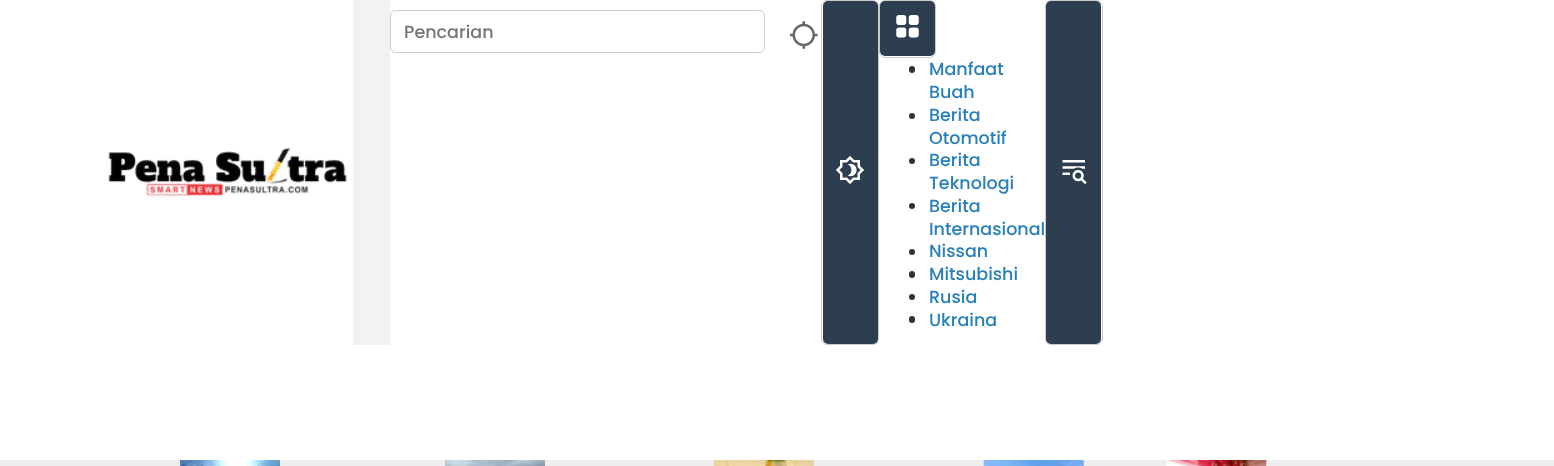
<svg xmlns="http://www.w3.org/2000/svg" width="1554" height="466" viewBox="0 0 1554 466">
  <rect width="100%" height="100%" fill="rgb(238,238,238)"/>
  <rect x="0" y="0" width="1554" height="460" fill="rgb(255,255,255)"/>
  <image x="106" y="147" width="241" height="50" href="pic1.png"/>
  <rect x="353" y="0" width="37" height="345" fill="rgb(242,242,242)"/>
  <rect x="390.5" y="10.5" width="374" height="42" rx="5.5" fill="none" stroke="rgb(204,204,204)"/>
  <text x="404" y="38" font-family="Poppins" font-size="17.5" font-weight="500" fill="rgb(117,117,117)">Pencarian</text>
  <image x="790" y="21" width="28" height="28" href="pic2.png"/>
  <rect x="823" y="1" width="55" height="343" rx="5" fill="rgb(44,62,80)"/>
  <rect x="821.5" y="0.5" width="57" height="344" rx="5.5" fill="none" stroke="rgba(0,0,0,0.2)"/>
  <image x="836" y="156" width="28" height="28" href="pic3.png"/>
  <rect x="1046" y="1" width="55" height="343" rx="5" fill="rgb(44,62,80)"/>
  <rect x="1045.5" y="0.5" width="57" height="344" rx="5.5" fill="none" stroke="rgba(0,0,0,0.2)"/>
  <image x="1062" y="160" width="25" height="25" href="pic4.png"/>
  <rect x="880" y="1" width="55" height="55" rx="5" fill="rgb(44,62,80)"/>
  <rect x="879.5" y="0.5" width="56" height="57" rx="5.5" fill="none" stroke="rgba(0,0,0,0.2)"/>
  <image x="896" y="15" width="23" height="23" href="pic5.png"/>
  <rect x="909" y="66" width="6" height="7" rx="3" fill="rgb(50,50,51)"/>
  <g font-family="Poppins" font-size="17.5" font-weight="500" fill="rgb(41,128,185)">
    <text>
      <tspan x="929" y="75">Manfaat</tspan>
      <tspan x="929" y="98">Buah</tspan>
    </text>
  </g>
  <circle cx="912" cy="116" r="3" fill="rgb(50,50,51)"/>
  <g font-family="Poppins" font-size="17.5" font-weight="500" fill="rgb(41,128,185)">
    <text>
      <tspan x="929" y="121">Berita</tspan>
      <tspan x="929" y="144">Otomotif</tspan>
    </text>
  </g>
  <circle cx="912" cy="161" r="3" fill="rgb(50,50,51)"/>
  <g font-family="Poppins" font-size="17.5" font-weight="500" fill="rgb(41,128,185)">
    <text>
      <tspan x="929" y="166">Berita</tspan>
      <tspan x="929" y="189">Teknologi</tspan>
    </text>
  </g>
  <circle cx="912" cy="206" r="3" fill="rgb(50,50,51)"/>
  <g font-family="Poppins" font-size="17.5" font-weight="500" fill="rgb(41,128,185)">
    <text>
      <tspan x="929" y="212">Berita</tspan>
      <tspan x="929" y="235">Internasional</tspan>
    </text>
  </g>
  <circle cx="912" cy="252" r="3" fill="rgb(50,50,51)"/>
  <text x="929" y="257" font-family="Poppins" font-size="17.5" font-weight="500" fill="rgb(41,128,185)">Nissan</text>
  <rect x="909" y="271" width="6" height="7" rx="3" fill="rgb(50,50,51)"/>
  <text x="929" y="280" font-family="Poppins" font-size="17.5" font-weight="500" fill="rgb(41,128,185)">Mitsubishi</text>
  <circle cx="912" cy="297" r="3" fill="rgb(50,50,51)"/>
  <text x="929" y="303" font-family="Poppins" font-size="17.5" font-weight="500" fill="rgb(41,128,185)">Rusia</text>
  <rect x="909" y="316" width="6" height="7" rx="3" fill="rgb(50,50,51)"/>
  <text x="929" y="326" font-family="Poppins" font-size="17.5" font-weight="500" fill="rgb(41,128,185)">Ukraina</text>
  <image x="180" y="460" width="100" height="6" href="pic6.png"/>
  <image x="445" y="460" width="100" height="6" href="pic7.png"/>
  <image x="713" y="460" width="101" height="6" href="pic8.png"/>
  <image x="983" y="460" width="101" height="6" href="pic9.png"/>
  <image x="1166" y="460" width="101" height="6" href="pic10.png"/>
</svg>
